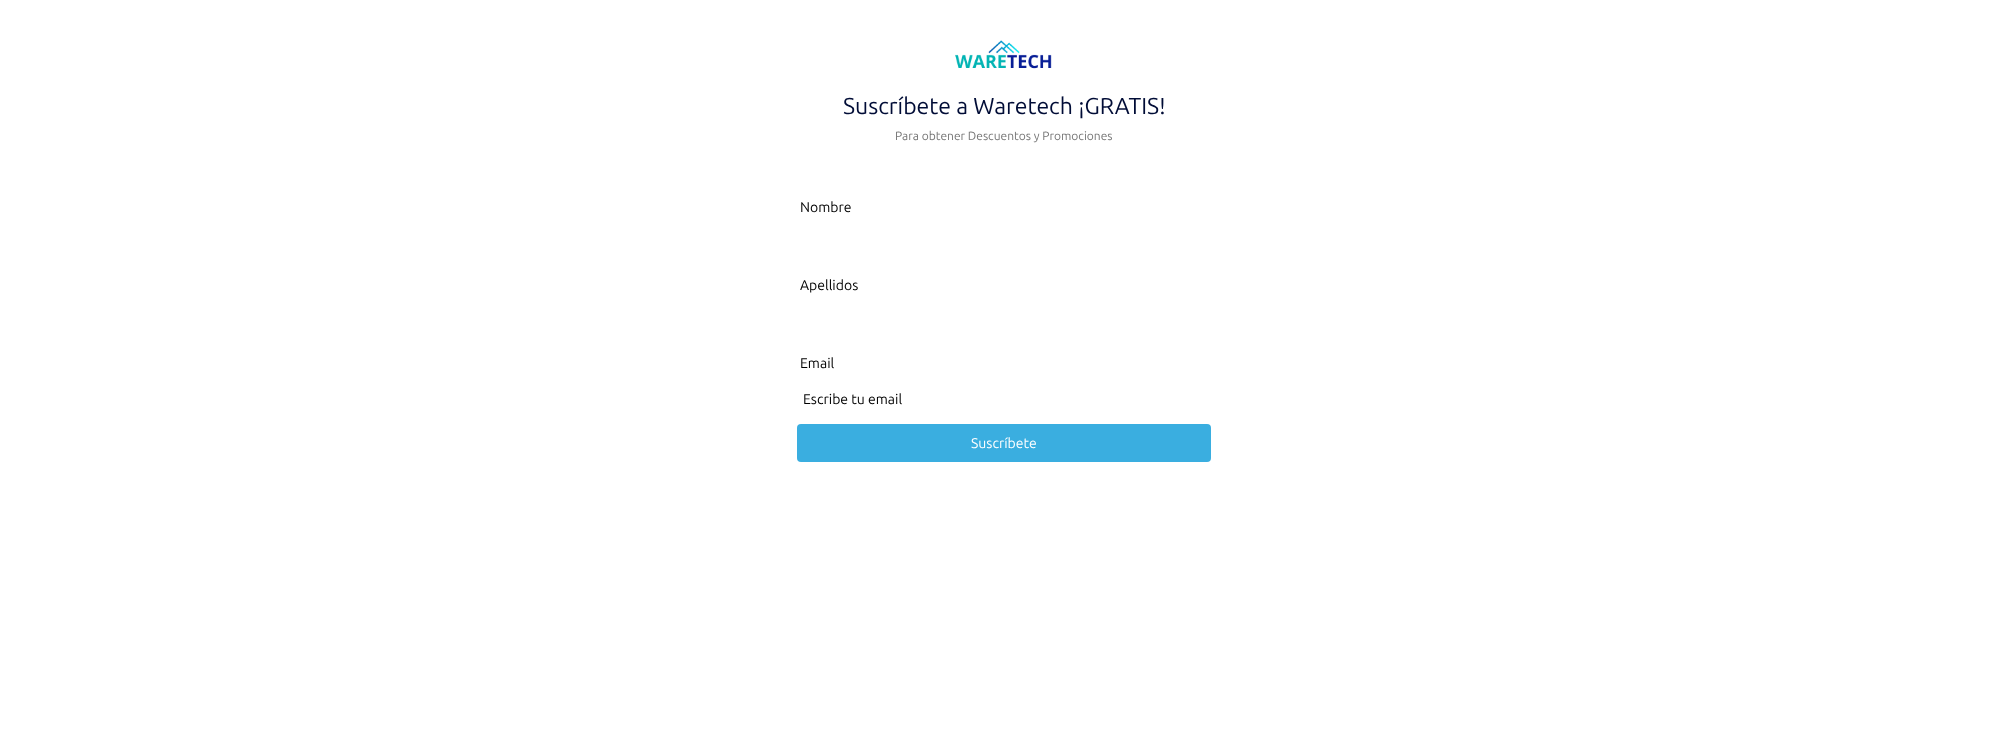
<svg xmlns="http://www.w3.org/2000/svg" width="2008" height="736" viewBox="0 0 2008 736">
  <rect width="100%" height="100%" fill="rgb(255,255,255)"/>
  <image x="955" y="40" width="97" height="29" href="pic1.png"/>
  <text x="843" y="114" font-family="Ubuntu" font-size="23" fill="rgb(0,12,54)">Suscríbete a Waretech ¡GRATIS!</text>
  <text x="895" y="140" font-family="Ubuntu" font-size="12" fill="rgb(117,117,117)">Para obtener Descuentos y Promociones</text>
  <g font-family="Ubuntu" font-size="14" fill="rgb(0,0,0)">
    <text x="800" y="212">Nombre</text>
    <text x="800" y="290">Apellidos</text>
    <text x="800" y="368">Email</text>
    <text x="803" y="404">Escribe tu email</text>
  </g>
  <rect x="797" y="424" width="414" height="38" rx="4" fill="rgb(58,174,224)"/>
  <text x="971" y="448" font-family="Ubuntu" font-size="14" fill="rgb(255,255,255)">Suscríbete</text>
</svg>
